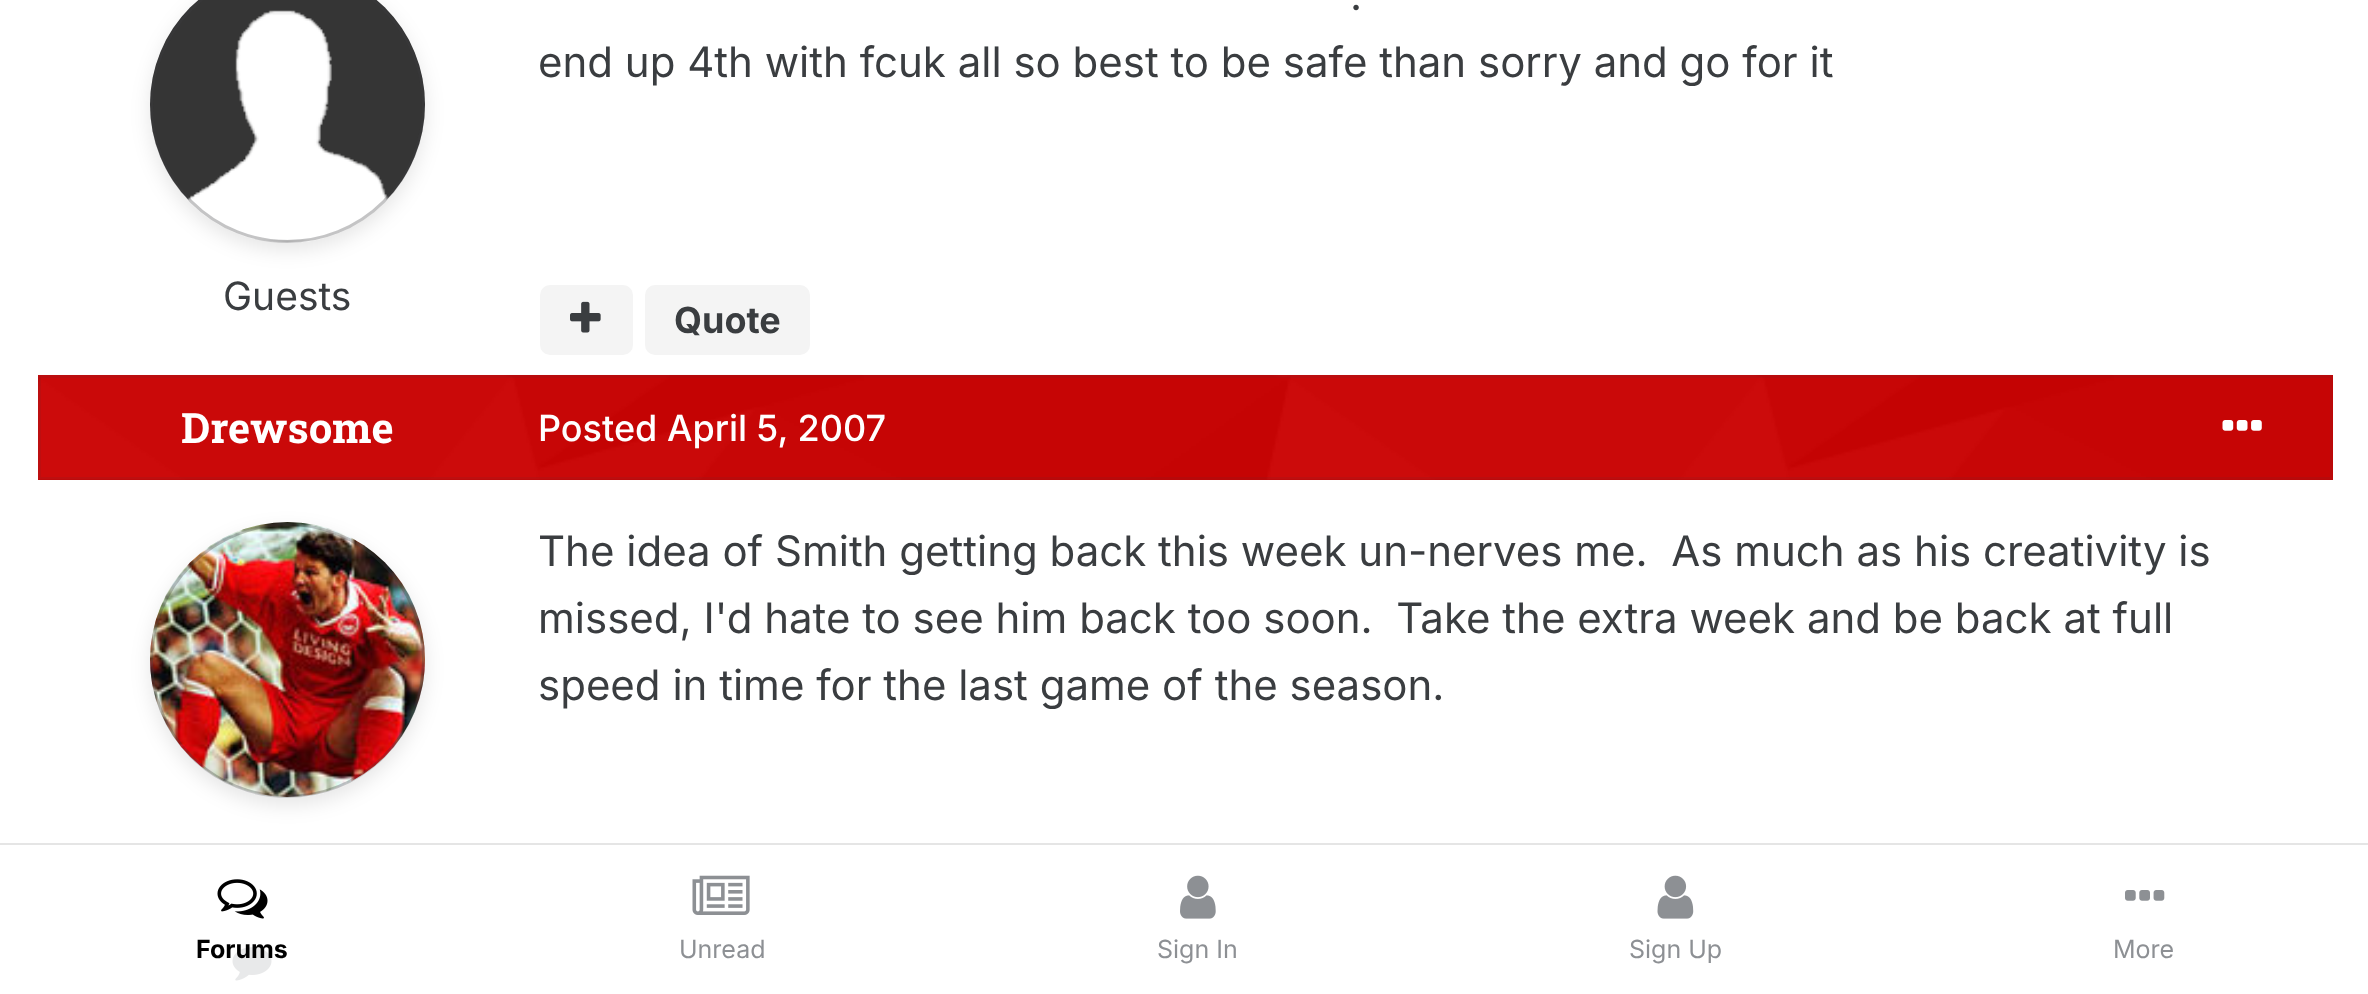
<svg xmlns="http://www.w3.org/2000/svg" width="2368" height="994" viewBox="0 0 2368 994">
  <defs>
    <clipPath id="clip1"><path d="M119 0H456V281H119ZM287.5-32C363.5-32 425 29.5 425 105.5C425 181.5 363.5 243 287.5 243C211.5 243 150 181.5 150 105.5C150 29.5 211.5-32 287.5-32Z" clip-rule="evenodd"/></clipPath>
    <clipPath id="clip2"><path d="M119 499H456V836H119ZM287.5 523C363.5 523 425 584.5 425 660.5C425 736.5 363.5 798 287.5 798C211.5 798 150 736.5 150 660.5C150 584.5 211.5 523 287.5 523Z" clip-rule="evenodd"/></clipPath>
  </defs>
  <rect width="100%" height="100%" fill="rgb(255,255,255)"/>
  <image x="150" y="0" width="275" height="242" href="pic1.png"/>
  <g clip-path="url(#clip1)">
    <rect x="150" y="-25" width="275" height="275" rx="137.5" fill="rgba(0,0,0,0.1)" filter="blur(10px)"/>
  </g>
  <circle cx="287.5" cy="105.5" r="136" fill="none" stroke="rgba(58,61,64,0.3)" stroke-width="3"/>
  <text x="223" y="310" font-family="Inter" font-size="39" fill="rgb(58,61,64)">Guests</text>
  <g font-family="Inter" font-size="42" fill="rgb(58,61,64)">
    <text x="1350" y="10">.</text>
    <text x="538" y="77">end up 4th with fcuk all so best to be safe than sorry and go for it</text>
  </g>
  <rect x="540" y="285" width="93" height="70" rx="10" fill="rgb(244,244,244)"/>
  <image x="570" y="301" width="31" height="32" href="pic2.png"/>
  <rect x="645" y="285" width="165" height="70" rx="10" fill="rgb(244,244,244)"/>
  <text x="674" y="333" font-family="Inter" font-size="36" font-weight="bold" fill="rgb(58,61,64)">Quote</text>
  <rect x="38" y="375" width="2295" height="105" fill="rgb(204,0,0)"/>
  <image x="38" y="374" width="2294" height="106" href="pic3.png"/>
  <rect x="39.5" y="376.5" width="2292" height="102" fill="none" stroke="rgba(58,61,64,0.1)" stroke-width="3"/>
  <text x="181" y="443" font-family="Roboto Slab" font-size="42" font-weight="bold" fill="rgb(255,255,255)">Drewsome</text>
  <image x="150" y="522" width="275" height="275" href="pic4.png"/>
  <g clip-path="url(#clip2)">
    <rect x="150" y="530" width="275" height="275" rx="137.5" fill="rgba(0,0,0,0.1)" filter="blur(10px)"/>
  </g>
  <circle cx="287.5" cy="660.5" r="136" fill="none" stroke="rgba(58,61,64,0.3)" stroke-width="3"/>
  <image x="232" y="947" width="40" height="34" href="pic5.png"/>
  <text x="538" y="441" font-family="Inter" font-size="36" font-weight="500" fill="rgb(255,255,255)">Posted April 5, 2007</text>
  <image x="2222" y="420" width="40" height="11" href="pic6.png"/>
  <g font-family="Inter" font-size="42" fill="rgb(58,61,64)">
    <text xml:space="preserve"><tspan x="538" y="566">The idea of Smith getting back this week un-nerves me.  As much as his creativity is</tspan><tspan x="538" y="633">missed, I'd hate to see him back too soon.  Take the extra week and be back at full</tspan><tspan x="538" y="700">speed in time for the last game of the season.</tspan></text>
  </g>
  <rect x="0" y="843" width="2368" height="2" fill="rgba(0,0,0,0.1)"/>
  <rect x="232" y="947" width="40" height="34" fill="rgba(255,255,255,0.8)"/>
  <image x="217" y="879" width="51" height="40" href="pic7.png"/>
  <text x="196" y="958" font-family="Inter" font-size="25" font-weight="bold" fill="rgb(0,0,0)">Forums</text>
  <image x="692" y="875" width="58" height="40" href="pic8.png"/>
  <text x="679" y="958" font-family="Inter" font-size="25" fill="rgb(141,144,148)">Unread</text>
  <image x="1180" y="875" width="36" height="44" href="pic9.png"/>
  <text x="1157" y="958" font-family="Inter" font-size="25" fill="rgb(141,144,148)">Sign In</text>
  <image x="1657" y="875" width="37" height="44" href="pic10.png"/>
  <text x="1629" y="958" font-family="Inter" font-size="25" fill="rgb(141,144,148)">Sign Up</text>
  <image x="2125" y="890" width="40" height="11" href="pic11.png"/>
  <text x="2113" y="958" font-family="Inter" font-size="25" fill="rgb(141,144,148)">More</text>
</svg>
